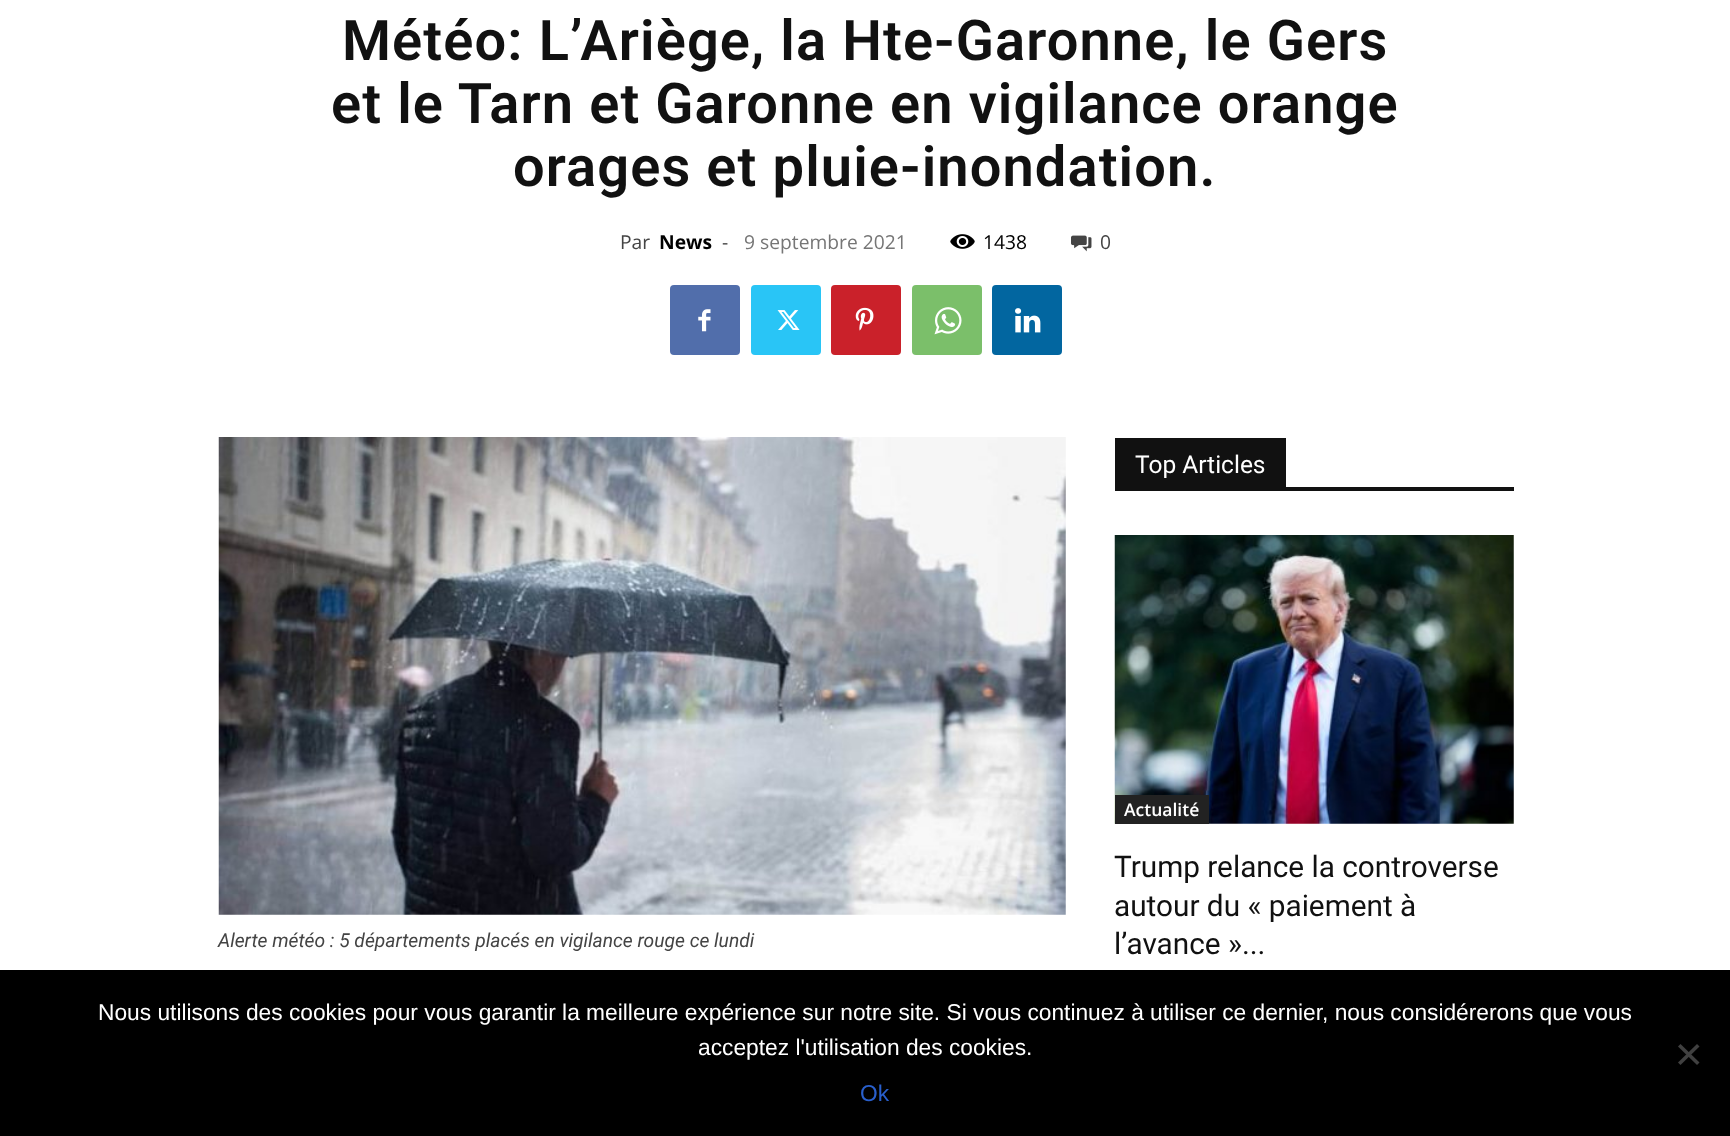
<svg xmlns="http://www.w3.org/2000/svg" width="1730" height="1136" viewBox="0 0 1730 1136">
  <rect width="100%" height="100%" fill="rgb(255,255,255)"/>
  <g font-family="Roboto" font-size="56" font-weight="600" letter-spacing="1.1" fill="rgb(17,17,17)">
    <text x="342" y="60">Météo: L’Ariège, la Hte-Garonne, le Gers</text>
    <text x="331" y="123">et le Tarn et Garonne en vigilance orange</text>
    <text x="513" y="186">orages et pluie-inondation.</text>
  </g>
  <text x="620" y="249" font-family="Open Sans" font-size="19.25" fill="rgb(68,68,68)">Par</text>
  <text x="659" y="249" font-family="Open Sans" font-size="19.25" font-weight="bold" fill="rgb(0,0,0)">News</text>
  <text x="722" y="249" font-family="Open Sans" font-size="19.25" fill="rgb(68,68,68)">-</text>
  <text x="744" y="249" font-family="Open Sans" font-size="19.25" fill="rgb(118,118,118)">9 septembre 2021</text>
  <image x="950" y="234" width="25" height="15" href="pic1.png"/>
  <text x="983" y="249" font-family="Open Sans" font-size="19.25" fill="rgb(0,0,0)">1438</text>
  <image x="1071" y="235" width="21" height="17" href="pic2.png"/>
  <text x="1100" y="249" font-family="Open Sans" font-size="19.25" fill="rgb(68,68,68)">0</text>
  <rect x="670" y="285" width="70" height="70" rx="4" fill="rgb(81,110,171)"/>
  <image x="698" y="309" width="13" height="23" href="pic3.png"/>
  <rect x="751" y="285" width="70" height="70" rx="4" fill="rgb(41,197,246)"/>
  <image x="777" y="310" width="23" height="20" href="pic4.png"/>
  <rect x="831" y="285" width="70" height="70" rx="4" fill="rgb(202,33,42)"/>
  <image x="855" y="307" width="19" height="24" href="pic5.png"/>
  <rect x="912" y="285" width="70" height="70" rx="4" fill="rgb(123,191,106)"/>
  <image x="934" y="307" width="28" height="28" href="pic6.png"/>
  <rect x="992" y="285" width="70" height="70" rx="4" fill="rgb(2,102,160)"/>
  <image x="1015" y="308" width="26" height="25" href="pic7.png"/>
  <image x="218" y="437" width="848" height="478" href="pic8.png"/>
  <text x="218" y="947" font-family="Roboto" font-size="19.25" font-style="italic" fill="rgb(68,68,68)">Alerte météo : 5 départements placés en vigilance rouge ce lundi</text>
  <rect x="1115" y="487" width="399" height="4" fill="rgb(17,17,17)"/>
  <rect x="1115" y="438" width="171" height="49" fill="rgb(17,17,17)"/>
  <text x="1135" y="473" font-family="Roboto" font-size="24.5" fill="rgb(255,255,255)">Top Articles</text>
  <image x="1114" y="535" width="400" height="289" href="pic9.png"/>
  <rect x="1115" y="795" width="94" height="29" fill="rgb(34,34,34)"/>
  <text x="1124" y="816" font-family="Open Sans" font-size="17.5" font-weight="600" fill="rgb(255,255,255)">Actualité</text>
  <g font-family="Roboto" font-size="29.75" fill="rgb(17,17,17)">
    <text>
      <tspan x="1114" y="877">Trump relance la controverse</tspan>
      <tspan x="1114" y="916">autour du « paiement à</tspan>
      <tspan x="1114" y="954">l’avance »...</tspan>
    </text>
  </g>
  <rect x="0" y="970" width="1730" height="166" fill="rgb(0,0,0)"/>
  <g font-family="Liberation Sans" font-size="22.75" fill="rgb(255,255,255)">
    <text x="98" y="1020">Nous utilisons des cookies pour vous garantir la meilleure expérience sur notre site. Si vous continuez à utiliser ce dernier, nous considérerons que vous</text>
    <text x="698" y="1055">acceptez l'utilisation des cookies.</text>
  </g>
  <path d="M1697 1044L1699.5 1046.5L1680.5 1065L1678 1062.5Z" fill="rgb(64,64,64)"/>
  <path d="M1678 1046.5L1680.5 1044L1699.5 1062.5L1697 1065Z" fill="rgb(64,64,64)"/>
  <text x="860" y="1101" font-family="Liberation Sans" font-size="22.75" fill="rgb(41,95,204)">Ok</text>
</svg>
